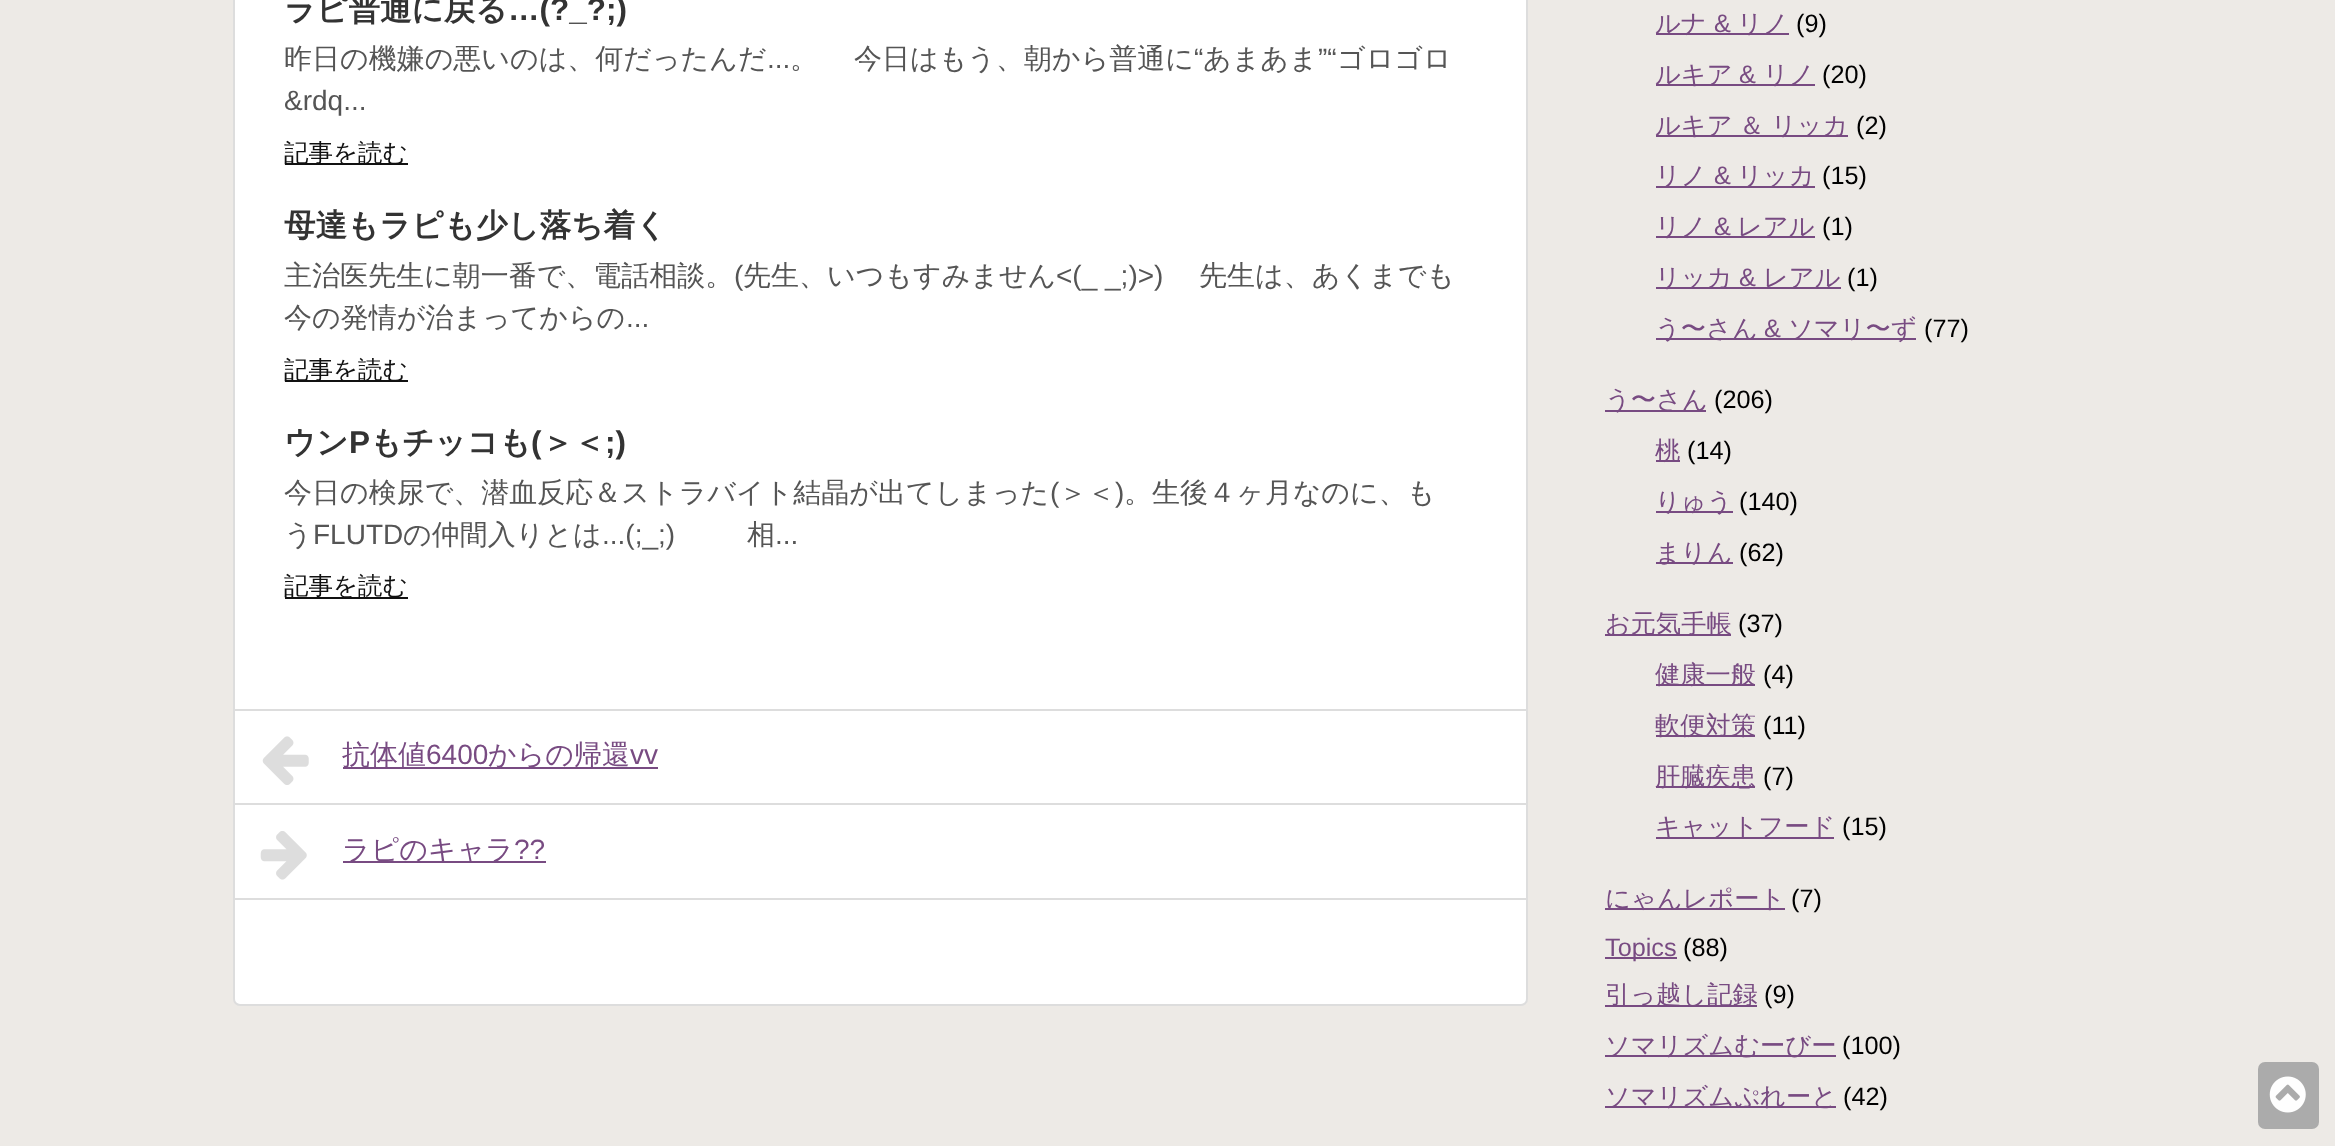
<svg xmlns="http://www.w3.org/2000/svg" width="2335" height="1146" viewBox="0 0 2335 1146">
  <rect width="100%" height="100%" fill="rgb(237,234,230)"/>
  <rect x="234" y="-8" width="1293" height="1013" rx="6" fill="rgb(255,255,255)" stroke="rgb(221,221,221)" stroke-width="2"/>
  <text x="284" y="20" font-family="WenQuanYi Zen Hei" font-size="31.5" font-weight="bold" fill="rgb(51,51,51)">ラピ普通に戻る</text>
  <text x="508" y="20" font-family="Liberation Sans" font-size="31.5" font-weight="bold" fill="rgb(51,51,51)">…(?_?;)</text>
  <g font-family="WenQuanYi Zen Hei" font-size="28" font-weight="500" fill="rgb(85,85,85)">
    <text x="284" y="68">昨日の機嫌の悪いのは、何だったんだ</text>
    <text x="854" y="68">今日はもう、朝から普通に</text>
  </g>
  <text x="1194" y="68" font-family="Liberation Sans" font-size="28" fill="rgb(85,85,85)">“</text>
  <text x="1203" y="68" font-family="WenQuanYi Zen Hei" font-size="28" font-weight="500" fill="rgb(85,85,85)">あまあま</text>
  <text x="1318" y="68" font-family="Liberation Sans" font-size="28" fill="rgb(85,85,85)">”“</text>
  <text x="1337" y="68" font-family="WenQuanYi Zen Hei" font-size="28" font-weight="500" fill="rgb(85,85,85)">ゴロゴロ</text>
  <text x="767" y="68" font-family="Liberation Sans" font-size="28" fill="rgb(85,85,85)">...</text>
  <text x="790" y="68" font-family="WenQuanYi Zen Hei" font-size="28" font-weight="500" fill="rgb(85,85,85)">。</text>
  <text x="284" y="110" font-family="Liberation Sans" font-size="28" fill="rgb(85,85,85)">&amp;rdq...</text>
  <rect x="285" y="163" width="123" height="2" fill="rgb(17,17,17)"/>
  <text x="284" y="161" font-family="WenQuanYi Zen Hei" font-size="24.5" font-weight="500" fill="rgb(17,17,17)">記事を読む</text>
  <text x="284" y="236" font-family="WenQuanYi Zen Hei" font-size="31.5" font-weight="bold" fill="rgb(51,51,51)">母達もラピも少し落ち着く</text>
  <text x="284" y="285" font-family="WenQuanYi Zen Hei" font-size="28" font-weight="500" fill="rgb(85,85,85)">主治医先生に朝一番で、電話相談。</text>
  <text x="734" y="285" font-family="Liberation Sans" font-size="28" fill="rgb(85,85,85)">(</text>
  <text x="743" y="285" font-family="WenQuanYi Zen Hei" font-size="28" font-weight="500" fill="rgb(85,85,85)">先生、いつもすみません</text>
  <text x="1056" y="285" font-family="Liberation Sans" font-size="28" fill="rgb(85,85,85)">&lt;(_ _;)&gt;)</text>
  <g font-family="WenQuanYi Zen Hei" font-size="28" font-weight="500" fill="rgb(85,85,85)">
    <text x="1199" y="285">先生は、あくまでも</text>
    <text x="284" y="327">今の発情が治まってからの</text>
  </g>
  <text x="626" y="327" font-family="Liberation Sans" font-size="28" fill="rgb(85,85,85)">...</text>
  <rect x="285" y="380" width="123" height="2" fill="rgb(17,17,17)"/>
  <text x="284" y="378" font-family="WenQuanYi Zen Hei" font-size="24.5" font-weight="500" fill="rgb(17,17,17)">記事を読む</text>
  <text x="284" y="453" font-family="WenQuanYi Zen Hei" font-size="31.5" font-weight="bold" fill="rgb(51,51,51)">ウン</text>
  <text x="349" y="453" font-family="Liberation Sans" font-size="31.5" font-weight="bold" fill="rgb(51,51,51)">P</text>
  <text x="370" y="453" font-family="WenQuanYi Zen Hei" font-size="31.5" font-weight="bold" fill="rgb(51,51,51)">もチッコも</text>
  <text x="531" y="453" font-family="Liberation Sans" font-size="31.5" font-weight="bold" fill="rgb(51,51,51)">(</text>
  <text x="542" y="453" font-family="WenQuanYi Zen Hei" font-size="31.5" font-weight="bold" fill="rgb(51,51,51)">＞＜</text>
  <text x="605" y="453" font-family="Liberation Sans" font-size="31.5" font-weight="bold" fill="rgb(51,51,51)">;)</text>
  <text x="284" y="502" font-family="WenQuanYi Zen Hei" font-size="28" font-weight="500" fill="rgb(85,85,85)">今日の検尿で、潜血反応＆ストラバイト結晶が出てしまった</text>
  <text x="1050" y="502" font-family="Liberation Sans" font-size="28" fill="rgb(85,85,85)">(</text>
  <text x="1059" y="502" font-family="WenQuanYi Zen Hei" font-size="28" font-weight="500" fill="rgb(85,85,85)">＞＜</text>
  <text x="1115" y="502" font-family="Liberation Sans" font-size="28" fill="rgb(85,85,85)">)</text>
  <g font-family="WenQuanYi Zen Hei" font-size="28" font-weight="500" fill="rgb(85,85,85)">
    <text x="1124" y="502">。生後４ヶ月なのに、も</text>
    <text x="284" y="544">う</text>
  </g>
  <text x="313" y="544" font-family="Liberation Sans" font-size="28" fill="rgb(85,85,85)">FLUTD</text>
  <text x="403" y="544" font-family="WenQuanYi Zen Hei" font-size="28" font-weight="500" fill="rgb(85,85,85)">の仲間入りとは</text>
  <text x="602" y="544" font-family="Liberation Sans" font-size="28" fill="rgb(85,85,85)">...(;_;)</text>
  <text x="747" y="544" font-family="WenQuanYi Zen Hei" font-size="28" font-weight="500" fill="rgb(85,85,85)">相</text>
  <text x="775" y="544" font-family="Liberation Sans" font-size="28" fill="rgb(85,85,85)">...</text>
  <rect x="285" y="597" width="123" height="2" fill="rgb(17,17,17)"/>
  <text x="284" y="594" font-family="WenQuanYi Zen Hei" font-size="24.5" font-weight="500" fill="rgb(17,17,17)">記事を読む</text>
  <rect x="233" y="709" width="1295" height="2" fill="rgb(221,221,221)"/>
  <rect x="233" y="803" width="1295" height="2" fill="rgb(221,221,221)"/>
  <image x="262" y="736" width="47" height="49" href="pic1.png"/>
  <rect x="343" y="767" width="315" height="2" fill="rgb(120,75,130)"/>
  <text x="342" y="764" font-family="WenQuanYi Zen Hei" font-size="28" font-weight="500" fill="rgb(120,75,130)">抗体値</text>
  <text x="426" y="764" font-family="Liberation Sans" font-size="28" fill="rgb(120,75,130)">6400</text>
  <text x="488" y="764" font-family="WenQuanYi Zen Hei" font-size="28" font-weight="500" fill="rgb(120,75,130)">からの帰還</text>
  <text x="630" y="764" font-family="Liberation Sans" font-size="28" fill="rgb(120,75,130)">vv</text>
  <rect x="233" y="898" width="1295" height="2" fill="rgb(221,221,221)"/>
  <image x="260" y="831" width="47" height="49" href="pic2.png"/>
  <rect x="343" y="861" width="203" height="2" fill="rgb(120,75,130)"/>
  <text x="342" y="859" font-family="WenQuanYi Zen Hei" font-size="28" font-weight="500" fill="rgb(120,75,130)">ラピのキャラ</text>
  <text x="514" y="859" font-family="Liberation Sans" font-size="28" fill="rgb(120,75,130)">??</text>
  <rect x="1656" y="33" width="133" height="2" fill="rgb(120,75,130)"/>
  <text x="1655" y="32" font-family="WenQuanYi Zen Hei" font-size="25.25" font-weight="500" fill="rgb(120,75,130)">ルナ</text>
  <text x="1714" y="32" font-family="Liberation Sans" font-size="25.25" fill="rgb(120,75,130)">&amp;</text>
  <text x="1737" y="32" font-family="WenQuanYi Zen Hei" font-size="25.25" font-weight="500" fill="rgb(120,75,130)">リノ</text>
  <text x="1796" y="32" font-family="Liberation Sans" font-size="25.25" fill="rgb(0,0,0)">(9)</text>
  <rect x="1656" y="84" width="159" height="2" fill="rgb(120,75,130)"/>
  <text x="1655" y="83" font-family="WenQuanYi Zen Hei" font-size="25.25" font-weight="500" fill="rgb(120,75,130)">ルキア</text>
  <text x="1739" y="83" font-family="Liberation Sans" font-size="25.25" fill="rgb(120,75,130)">&amp;</text>
  <text x="1763" y="83" font-family="WenQuanYi Zen Hei" font-size="25.25" font-weight="500" fill="rgb(120,75,130)">リノ</text>
  <text x="1822" y="83" font-family="Liberation Sans" font-size="25.25" fill="rgb(0,0,0)">(20)</text>
  <rect x="1656" y="135" width="192" height="2" fill="rgb(120,75,130)"/>
  <text x="1655" y="134" word-spacing="-1" font-family="WenQuanYi Zen Hei" font-size="25.25" font-weight="500" fill="rgb(120,75,130)">ルキア ＆ リッカ</text>
  <text x="1856" y="134" font-family="Liberation Sans" font-size="25.25" fill="rgb(0,0,0)">(2)</text>
  <rect x="1656" y="186" width="159" height="2" fill="rgb(120,75,130)"/>
  <text x="1655" y="184" font-family="WenQuanYi Zen Hei" font-size="25.25" font-weight="500" fill="rgb(120,75,130)">リノ</text>
  <text x="1714" y="184" font-family="Liberation Sans" font-size="25.25" fill="rgb(120,75,130)">&amp;</text>
  <text x="1737" y="184" font-family="WenQuanYi Zen Hei" font-size="25.25" font-weight="500" fill="rgb(120,75,130)">リッカ</text>
  <text x="1822" y="184" font-family="Liberation Sans" font-size="25.25" fill="rgb(0,0,0)">(15)</text>
  <rect x="1656" y="236" width="159" height="2" fill="rgb(120,75,130)"/>
  <text x="1655" y="235" font-family="WenQuanYi Zen Hei" font-size="25.25" font-weight="500" fill="rgb(120,75,130)">リノ</text>
  <text x="1714" y="235" font-family="Liberation Sans" font-size="25.25" fill="rgb(120,75,130)">&amp;</text>
  <text x="1737" y="235" font-family="WenQuanYi Zen Hei" font-size="25.25" font-weight="500" fill="rgb(120,75,130)">レアル</text>
  <text x="1822" y="235" font-family="Liberation Sans" font-size="25.25" fill="rgb(0,0,0)">(1)</text>
  <rect x="1656" y="287" width="185" height="2" fill="rgb(120,75,130)"/>
  <text x="1655" y="286" font-family="WenQuanYi Zen Hei" font-size="25.25" font-weight="500" fill="rgb(120,75,130)">リッカ</text>
  <text x="1739" y="286" font-family="Liberation Sans" font-size="25.25" fill="rgb(120,75,130)">&amp;</text>
  <text x="1763" y="286" font-family="WenQuanYi Zen Hei" font-size="25.25" font-weight="500" fill="rgb(120,75,130)">レアル</text>
  <text x="1847" y="286" font-family="Liberation Sans" font-size="25.25" fill="rgb(0,0,0)">(1)</text>
  <rect x="1656" y="338" width="260" height="2" fill="rgb(120,75,130)"/>
  <text x="1655" y="337" font-family="WenQuanYi Zen Hei" font-size="25.25" font-weight="500" fill="rgb(120,75,130)">う〜さん</text>
  <text x="1764" y="337" font-family="Liberation Sans" font-size="25.25" fill="rgb(120,75,130)">&amp;</text>
  <text x="1788" y="337" font-family="WenQuanYi Zen Hei" font-size="25.25" font-weight="500" fill="rgb(120,75,130)">ソマリ〜ず</text>
  <text x="1924" y="337" font-family="Liberation Sans" font-size="25.25" fill="rgb(0,0,0)">(77)</text>
  <rect x="1605" y="410" width="101" height="2" fill="rgb(120,75,130)"/>
  <text x="1605" y="408" font-family="WenQuanYi Zen Hei" font-size="25.25" font-weight="500" fill="rgb(120,75,130)">う〜さん</text>
  <text x="1714" y="408" font-family="Liberation Sans" font-size="25.25" fill="rgb(0,0,0)">(206)</text>
  <rect x="1656" y="460" width="24" height="2" fill="rgb(120,75,130)"/>
  <text x="1655" y="459" font-family="WenQuanYi Zen Hei" font-size="25.25" font-weight="500" fill="rgb(120,75,130)">桃</text>
  <text x="1687" y="459" font-family="Liberation Sans" font-size="25.25" fill="rgb(0,0,0)">(14)</text>
  <rect x="1656" y="511" width="77" height="2" fill="rgb(120,75,130)"/>
  <text x="1655" y="510" font-family="WenQuanYi Zen Hei" font-size="25.25" font-weight="500" fill="rgb(120,75,130)">りゅう</text>
  <text x="1739" y="510" font-family="Liberation Sans" font-size="25.25" fill="rgb(0,0,0)">(140)</text>
  <rect x="1656" y="562" width="77" height="2" fill="rgb(120,75,130)"/>
  <text x="1655" y="561" font-family="WenQuanYi Zen Hei" font-size="25.25" font-weight="500" fill="rgb(120,75,130)">まりん</text>
  <text x="1739" y="561" font-family="Liberation Sans" font-size="25.25" fill="rgb(0,0,0)">(62)</text>
  <rect x="1605" y="634" width="126" height="2" fill="rgb(120,75,130)"/>
  <text x="1605" y="632" font-family="WenQuanYi Zen Hei" font-size="25.25" font-weight="500" fill="rgb(120,75,130)">お元気手帳</text>
  <text x="1738" y="632" font-family="Liberation Sans" font-size="25.25" fill="rgb(0,0,0)">(37)</text>
  <rect x="1656" y="684" width="99" height="2" fill="rgb(120,75,130)"/>
  <text x="1655" y="683" font-family="WenQuanYi Zen Hei" font-size="25.25" font-weight="500" fill="rgb(120,75,130)">健康一般</text>
  <text x="1763" y="683" font-family="Liberation Sans" font-size="25.25" fill="rgb(0,0,0)">(4)</text>
  <rect x="1656" y="735" width="99" height="2" fill="rgb(120,75,130)"/>
  <text x="1655" y="734" font-family="WenQuanYi Zen Hei" font-size="25.25" font-weight="500" fill="rgb(120,75,130)">軟便対策</text>
  <text x="1763" y="734" font-family="Liberation Sans" font-size="25.25" fill="rgb(0,0,0)">(11)</text>
  <rect x="1656" y="786" width="99" height="2" fill="rgb(120,75,130)"/>
  <text x="1655" y="785" font-family="WenQuanYi Zen Hei" font-size="25.25" font-weight="500" fill="rgb(120,75,130)">肝臓疾患</text>
  <text x="1763" y="785" font-family="Liberation Sans" font-size="25.25" fill="rgb(0,0,0)">(7)</text>
  <rect x="1656" y="837" width="178" height="2" fill="rgb(120,75,130)"/>
  <text x="1655" y="835" font-family="WenQuanYi Zen Hei" font-size="25.25" font-weight="500" fill="rgb(120,75,130)">キャットフード</text>
  <text x="1842" y="835" font-family="Liberation Sans" font-size="25.25" fill="rgb(0,0,0)">(15)</text>
  <rect x="1605" y="908" width="180" height="2" fill="rgb(120,75,130)"/>
  <text x="1605" y="907" font-family="WenQuanYi Zen Hei" font-size="25.25" font-weight="500" fill="rgb(120,75,130)">にゃんレポート</text>
  <text x="1791" y="907" font-family="Liberation Sans" font-size="25.25" fill="rgb(0,0,0)">(7)</text>
  <rect x="1605" y="957" width="72" height="2" fill="rgb(120,75,130)"/>
  <text x="1605" y="956" font-family="Liberation Sans" font-size="25.25" fill="rgb(120,75,130)">Topics</text>
  <text x="1683" y="956" font-family="Liberation Sans" font-size="25.25" fill="rgb(0,0,0)">(88)</text>
  <rect x="1605" y="1005" width="152" height="2" fill="rgb(120,75,130)"/>
  <text x="1605" y="1003" font-family="WenQuanYi Zen Hei" font-size="25.25" font-weight="500" fill="rgb(120,75,130)">引っ越し記録</text>
  <text x="1764" y="1003" font-family="Liberation Sans" font-size="25.25" fill="rgb(0,0,0)">(9)</text>
  <rect x="1605" y="1055" width="231" height="2" fill="rgb(120,75,130)"/>
  <text x="1605" y="1054" font-family="WenQuanYi Zen Hei" font-size="25.25" font-weight="500" fill="rgb(120,75,130)">ソマリズムむーびー</text>
  <text x="1842" y="1054" font-family="Liberation Sans" font-size="25.25" fill="rgb(0,0,0)">(100)</text>
  <rect x="1605" y="1106" width="231" height="2" fill="rgb(120,75,130)"/>
  <text x="1605" y="1105" font-family="WenQuanYi Zen Hei" font-size="25.25" font-weight="500" fill="rgb(120,75,130)">ソマリズムぷれーと</text>
  <text x="1843" y="1105" font-family="Liberation Sans" font-size="25.25" fill="rgb(0,0,0)">(42)</text>
  <rect x="2258" y="1062" width="61" height="67" rx="7" fill="rgb(171,171,171)"/>
  <image x="2269" y="1076" width="37" height="37" href="pic3.png"/>
</svg>
